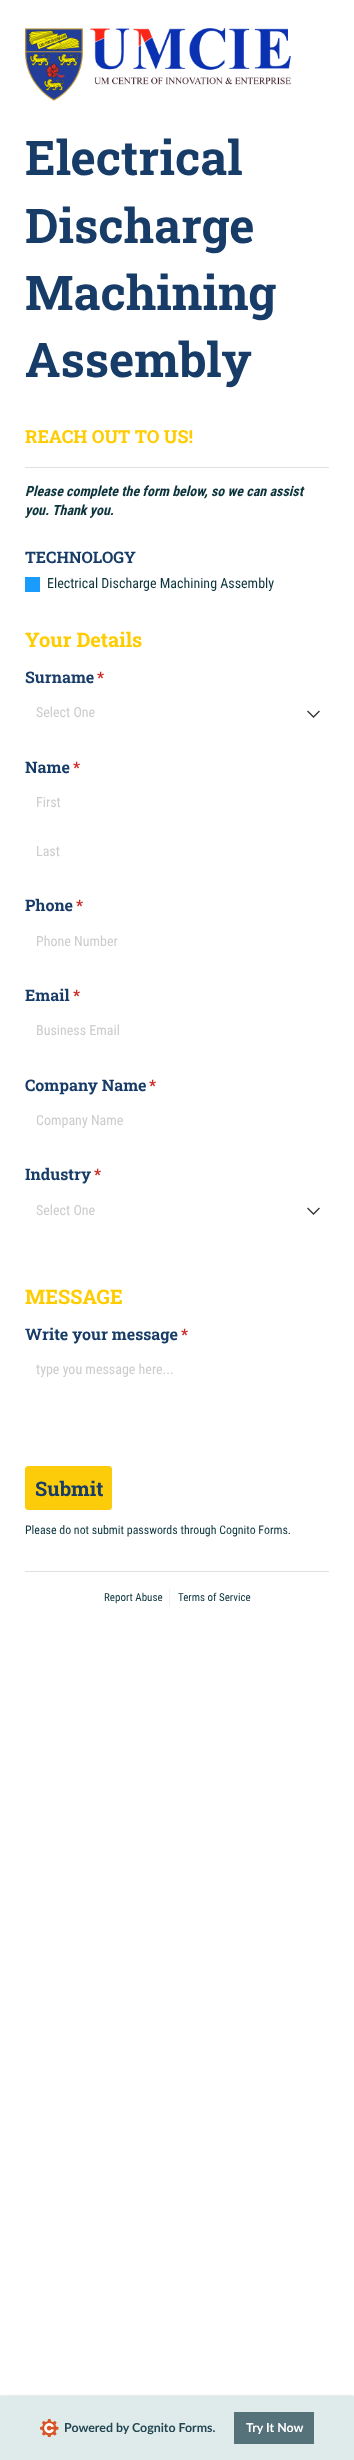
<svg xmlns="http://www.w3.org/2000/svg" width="354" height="2460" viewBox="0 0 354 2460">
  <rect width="100%" height="100%" fill="rgb(255,255,255)"/>
  <image x="25" y="28" width="266" height="73" href="pic1.png"/>
  <g font-family="Roboto Slab" font-size="48" font-weight="bold" fill="rgb(24,60,104)">
    <text>
      <tspan x="25" y="175">Electrical</tspan>
      <tspan x="25" y="243">Discharge</tspan>
      <tspan x="25" y="310">Machining</tspan>
      <tspan x="25" y="377">Assembly</tspan>
    </text>
  </g>
  <text x="25" y="443" font-family="Roboto Slab" font-size="18" font-weight="bold" fill="rgb(255,204,0)">REACH OUT TO US!</text>
  <rect x="25" y="467" width="304" height="1" fill="rgb(224,224,224)"/>
  <g font-family="Roboto Condensed" font-size="14" font-weight="bold" font-style="italic" fill="rgb(12,52,61)">
    <text>
      <tspan x="25" y="496">Please complete the form below, so we can assist</tspan>
      <tspan x="25" y="515">you. Thank you.</tspan>
    </text>
  </g>
  <text x="25" y="563" font-family="Roboto Slab" font-size="16" font-weight="bold" fill="rgb(24,60,104)">TECHNOLOGY</text>
  <rect x="25" y="577" width="15" height="15" fill="rgb(26,156,255)"/>
  <text x="47" y="588" font-family="Roboto Condensed" font-size="14" fill="rgb(12,52,61)">Electrical Discharge Machining Assembly</text>
  <text x="25" y="647" font-family="Roboto Slab" font-size="20" font-weight="bold" fill="rgb(255,204,0)">Your Details</text>
  <text x="25" y="683" font-family="Roboto Slab" font-size="16" font-weight="bold" fill="rgb(24,60,104)">Surname</text>
  <text x="97" y="683" font-family="Roboto Slab" font-size="16" font-weight="bold" fill="rgb(204,42,36)">*</text>
  <text x="36" y="717" font-family="Roboto Condensed" font-size="14" fill="rgb(204,204,204)">Select One</text>
  <path d="M308 711.5L313.5 717L319 711.5" fill="none" stroke="rgb(51,51,51)" stroke-width="1.3" stroke-linecap="square"/>
  <text x="25" y="773" font-family="Roboto Slab" font-size="16" font-weight="bold" fill="rgb(24,60,104)">Name</text>
  <text x="73" y="773" font-family="Roboto Slab" font-size="16" font-weight="bold" fill="rgb(204,42,36)">*</text>
  <g font-family="Roboto Condensed" font-size="14" fill="rgb(204,204,204)">
    <text x="36" y="807">First</text>
    <text x="36" y="856">Last</text>
  </g>
  <text x="25" y="911" font-family="Roboto Slab" font-size="16" font-weight="bold" fill="rgb(24,60,104)">Phone</text>
  <text x="76" y="911" font-family="Roboto Slab" font-size="16" font-weight="bold" fill="rgb(204,42,36)">*</text>
  <text x="36" y="946" font-family="Roboto Condensed" font-size="14" fill="rgb(204,204,204)">Phone Number</text>
  <text x="25" y="1001" font-family="Roboto Slab" font-size="16" font-weight="bold" fill="rgb(24,60,104)">Email</text>
  <text x="73" y="1001" font-family="Roboto Slab" font-size="16" font-weight="bold" fill="rgb(204,42,36)">*</text>
  <text x="36" y="1035" font-family="Roboto Condensed" font-size="14" fill="rgb(204,204,204)">Business Email</text>
  <text x="25" y="1091" font-family="Roboto Slab" font-size="16" font-weight="bold" fill="rgb(24,60,104)">Company Name</text>
  <text x="149" y="1091" font-family="Roboto Slab" font-size="16" font-weight="bold" fill="rgb(204,42,36)">*</text>
  <text x="36" y="1125" font-family="Roboto Condensed" font-size="14" fill="rgb(204,204,204)">Company Name</text>
  <text x="25" y="1180" font-family="Roboto Slab" font-size="16" font-weight="bold" fill="rgb(24,60,104)">Industry</text>
  <text x="94" y="1180" font-family="Roboto Slab" font-size="16" font-weight="bold" fill="rgb(204,42,36)">*</text>
  <text x="36" y="1215" font-family="Roboto Condensed" font-size="14" fill="rgb(204,204,204)">Select One</text>
  <path d="M308 1208.5L313.5 1214L319 1208.5" fill="none" stroke="rgb(51,51,51)" stroke-width="1.3" stroke-linecap="square"/>
  <text x="25" y="1304" font-family="Roboto Slab" font-size="20" font-weight="bold" fill="rgb(255,204,0)">MESSAGE</text>
  <text x="25" y="1340" font-family="Roboto Slab" font-size="16" font-weight="bold" fill="rgb(24,60,104)">Write your message</text>
  <text x="181" y="1340" font-family="Roboto Slab" font-size="16" font-weight="bold" fill="rgb(204,42,36)">*</text>
  <text x="36" y="1374" font-family="Roboto Condensed" font-size="14" fill="rgb(204,204,204)">type you message here...</text>
  <rect x="25.5" y="1466.5" width="86" height="43" rx="2.5" fill="rgb(252,204,10)" stroke="rgb(252,204,10)"/>
  <text x="35" y="1496" font-family="Roboto Slab" font-size="20" font-weight="bold" fill="rgb(24,60,104)">Submit</text>
  <text x="25" y="1534" font-family="Roboto Condensed" font-size="11.9" fill="rgb(12,52,61)">Please do not submit passwords through Cognito Forms.</text>
  <rect x="25" y="1571" width="304" height="1" fill="rgb(224,224,224)"/>
  <text x="104" y="1601" font-family="Roboto Condensed" font-size="11" fill="rgb(12,52,61)">Report Abuse</text>
  <rect x="169" y="1589" width="1" height="18" fill="rgb(240,240,240)"/>
  <text x="178" y="1601" font-family="Roboto Condensed" font-size="11" fill="rgb(12,52,61)">Terms of Service</text>
  <rect x="0" y="2396" width="354" height="64" fill="rgba(85,114,123,0.4)" filter="blur(1px)"/>
  <rect x="0" y="2396" width="354" height="64" fill="rgb(223,234,234)"/>
  <image x="40" y="2419" width="19" height="18" href="pic2.png"/>
  <text x="64" y="2432" font-family="Lato" font-size="12.4" font-weight="bold" fill="rgb(35,70,82)">Powered by Cognito Forms.</text>
  <rect x="234" y="2412" width="80" height="32" fill="rgb(85,114,123)"/>
  <text x="246" y="2432" font-family="Lato" font-size="12.4" font-weight="bold" fill="rgb(255,255,255)">Try It Now</text>
</svg>
